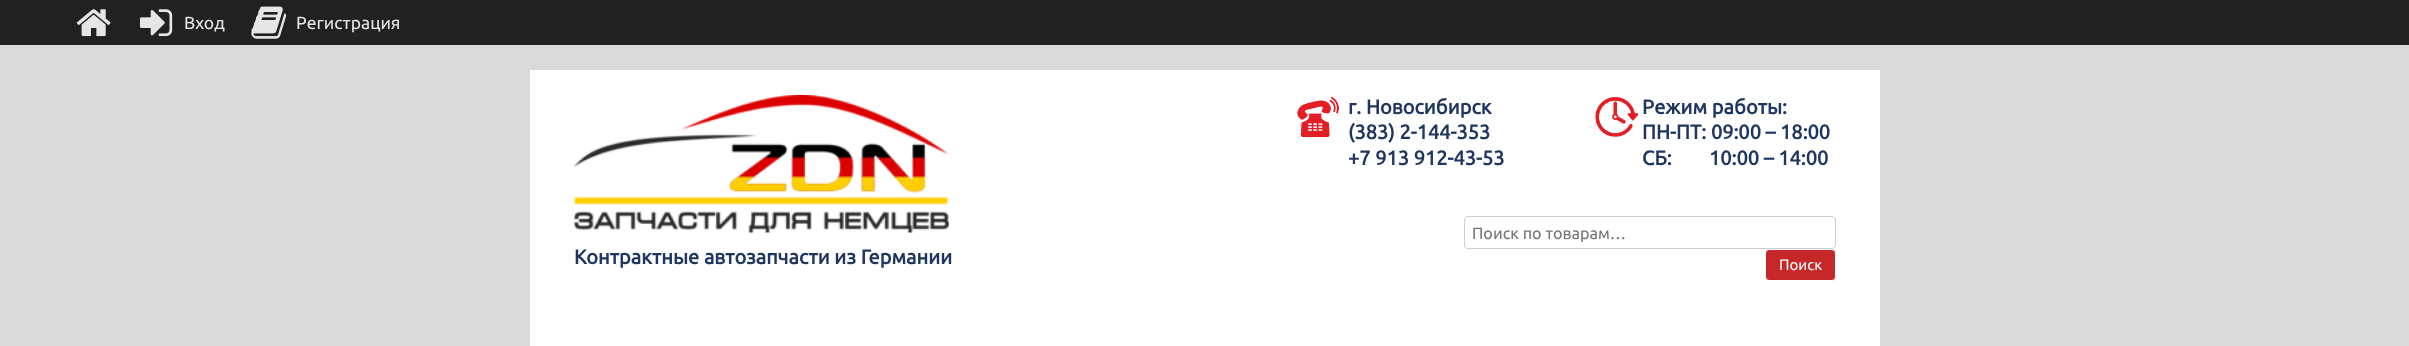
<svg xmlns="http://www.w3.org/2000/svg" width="2409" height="346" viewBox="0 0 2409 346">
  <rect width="100%" height="100%" fill="rgb(218,218,218)"/>
  <rect x="0" y="0" width="2409" height="45" fill="rgb(33,33,33)"/>
  <image x="76" y="9" width="35" height="28" href="pic1.png"/>
  <image x="140" y="9" width="33" height="28" href="pic2.png"/>
  <text x="184" y="29" font-family="Ubuntu" font-size="17.5" fill="rgb(230,230,230)">Вход</text>
  <image x="251" y="6" width="36" height="33" href="pic3.png"/>
  <text x="296" y="29" font-family="Ubuntu" font-size="17.5" fill="rgb(230,230,230)">Регистрация</text>
  <rect x="530" y="70" width="1350" height="276" fill="rgb(255,255,255)"/>
  <image x="573" y="95" width="376" height="138" href="pic4.png"/>
  <text x="574" y="264" font-family="Ubuntu" font-size="20" font-weight="bold" fill="rgb(31,54,97)">Контрактные автозапчасти из Германии</text>
  <image x="1297" y="96" width="42" height="42" href="pic5.png"/>
  <g font-family="Ubuntu" font-size="20" font-weight="bold" fill="rgb(31,54,97)">
    <text>
      <tspan x="1348" y="114">г. Новосибирск</tspan>
      <tspan x="1348" y="139">(383) 2-144-353</tspan>
      <tspan x="1348" y="165">+7 913 912-43-53</tspan>
    </text>
  </g>
  <image x="1595" y="96" width="44" height="41" href="pic6.png"/>
  <g font-family="Ubuntu" font-size="20" font-weight="bold" fill="rgb(31,54,97)">
    <text>
      <tspan x="1642" y="114">Режим работы:</tspan>
      <tspan x="1642" y="139">ПН-ПТ: 09:00 – 18:00</tspan>
      <tspan x="1642" y="165">СБ:</tspan>
    </text>
    <text x="1709" y="165">10:00 – 14:00</text>
  </g>
  <rect x="1464.5" y="216.5" width="371" height="32" rx="3.5" fill="none" stroke="rgb(204,204,204)"/>
  <text x="1472" y="239" font-family="Ubuntu" font-size="16.25" fill="rgb(117,117,117)">Поиск по товарам…</text>
  <rect x="1765.5" y="249.5" width="70" height="31" rx="3.5" fill="rgb(198,40,41)" stroke="rgb(255,255,255)"/>
  <text x="1779" y="270" font-family="Ubuntu" font-size="15" fill="rgb(255,255,255)">Поиск</text>
</svg>
